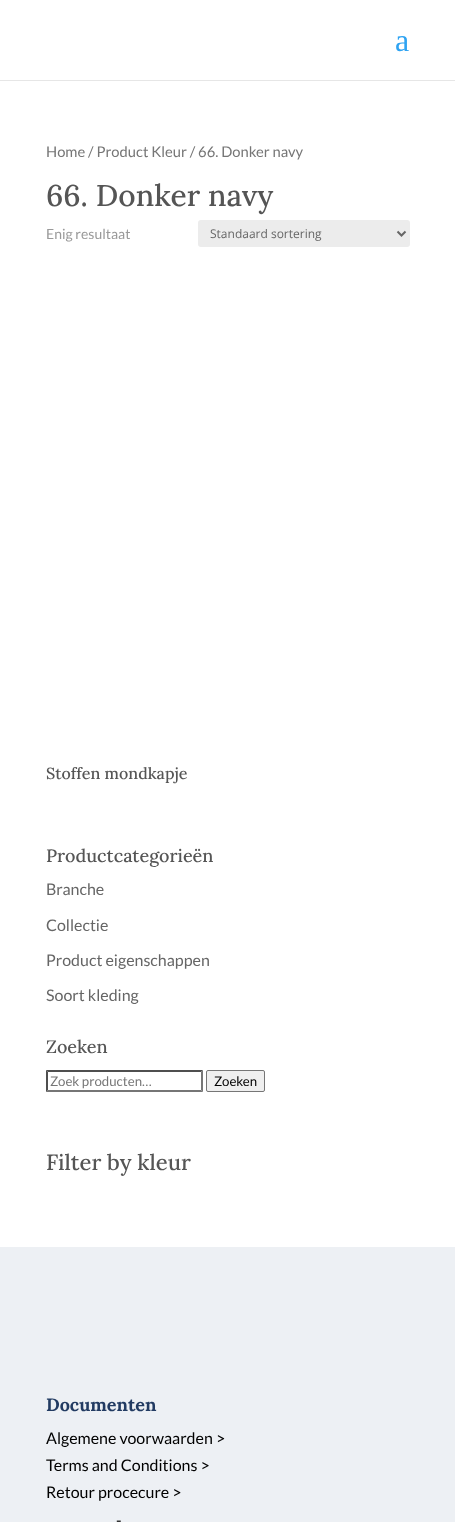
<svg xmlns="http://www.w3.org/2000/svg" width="455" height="1522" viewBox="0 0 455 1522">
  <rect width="100%" height="100%" fill="rgb(255,255,255)"/>
  <rect x="0" y="80" width="455" height="1" fill="rgb(230,230,230)"/>
  <text x="395" y="51" font-family="Liberation Serif" font-size="32" fill="rgb(46,163,242)">a</text>
  <text x="46" y="157" font-family="Lato" font-size="14.75" fill="rgb(118,118,118)">Home / Product Kleur / 66. Donker navy</text>
  <text x="46" y="206" font-family="Lora" font-size="30" font-weight="500" fill="rgb(85,85,85)">66. Donker navy</text>
  <text x="46" y="239" font-family="Lato" font-size="14" fill="rgb(153,153,153)">Enig resultaat</text>
  <rect x="198" y="220" width="212" height="27" rx="3" fill="rgb(236,236,236)"/>
  <path d="M397.5 231.5L401.5 235.5L405.5 231.5" fill="none" stroke="rgb(102,102,102)" stroke-width="2"/>
  <text x="210" y="238" font-family="Open Sans" font-size="12" fill="rgb(102,102,102)">Standaard sortering</text>
  <text x="46" y="779" font-family="Lora" font-size="16" font-weight="500" fill="rgb(85,85,85)">Stoffen mondkapje</text>
  <text x="46" y="862" font-family="Lora" font-size="18" font-weight="500" fill="rgb(85,85,85)">Productcategorieën</text>
  <g font-family="Lato" font-size="16" fill="rgb(102,102,102)">
    <text x="46" y="895">Branche</text>
    <text x="46" y="931">Collectie</text>
    <text x="46" y="966">Product eigenschappen</text>
    <text x="46" y="1001">Soort kleding</text>
  </g>
  <text x="46" y="1053" font-family="Lora" font-size="18" font-weight="500" fill="rgb(85,85,85)">Zoeken</text>
  <path d="M46 1070H203L201 1072H48Z" fill="rgb(79,79,79)"/>
  <path d="M203 1070V1092L201 1090V1072Z" fill="rgb(118,118,118)"/>
  <path d="M203 1092H46L48 1090H201Z" fill="rgb(118,118,118)"/>
  <path d="M46 1092V1070L48 1072V1090Z" fill="rgb(79,79,79)"/>
  <text x="50" y="1086" font-family="Lato" font-size="13.25" fill="rgb(118,118,118)">Zoek producten…</text>
  <rect x="206.5" y="1070.5" width="58" height="21" rx="1.5" fill="rgb(239,239,239)" stroke="rgb(118,118,118)"/>
  <text x="214" y="1086" font-family="Lato" font-size="13.25" fill="rgb(0,0,0)">Zoeken</text>
  <text x="46" y="1170" font-family="Lora" font-size="22" font-weight="500" fill="rgb(85,85,85)">Filter by kleur</text>
  <rect x="0" y="1247" width="455" height="275" fill="rgb(237,240,244)"/>
  <text x="46" y="1411" font-family="Lora" font-size="18" font-weight="bold" fill="rgb(34,59,98)">Documenten</text>
  <g font-family="Lato" font-size="16" fill="rgb(0,0,0)">
    <text>
      <tspan x="46" y="1444">Algemene voorwaarden &gt;</tspan>
      <tspan x="46" y="1471">Terms and Conditions &gt;</tspan>
      <tspan x="46" y="1498">Retour procecure &gt;</tspan>
    </text>
    <text x="116" y="1526">-</text>
  </g>
</svg>
